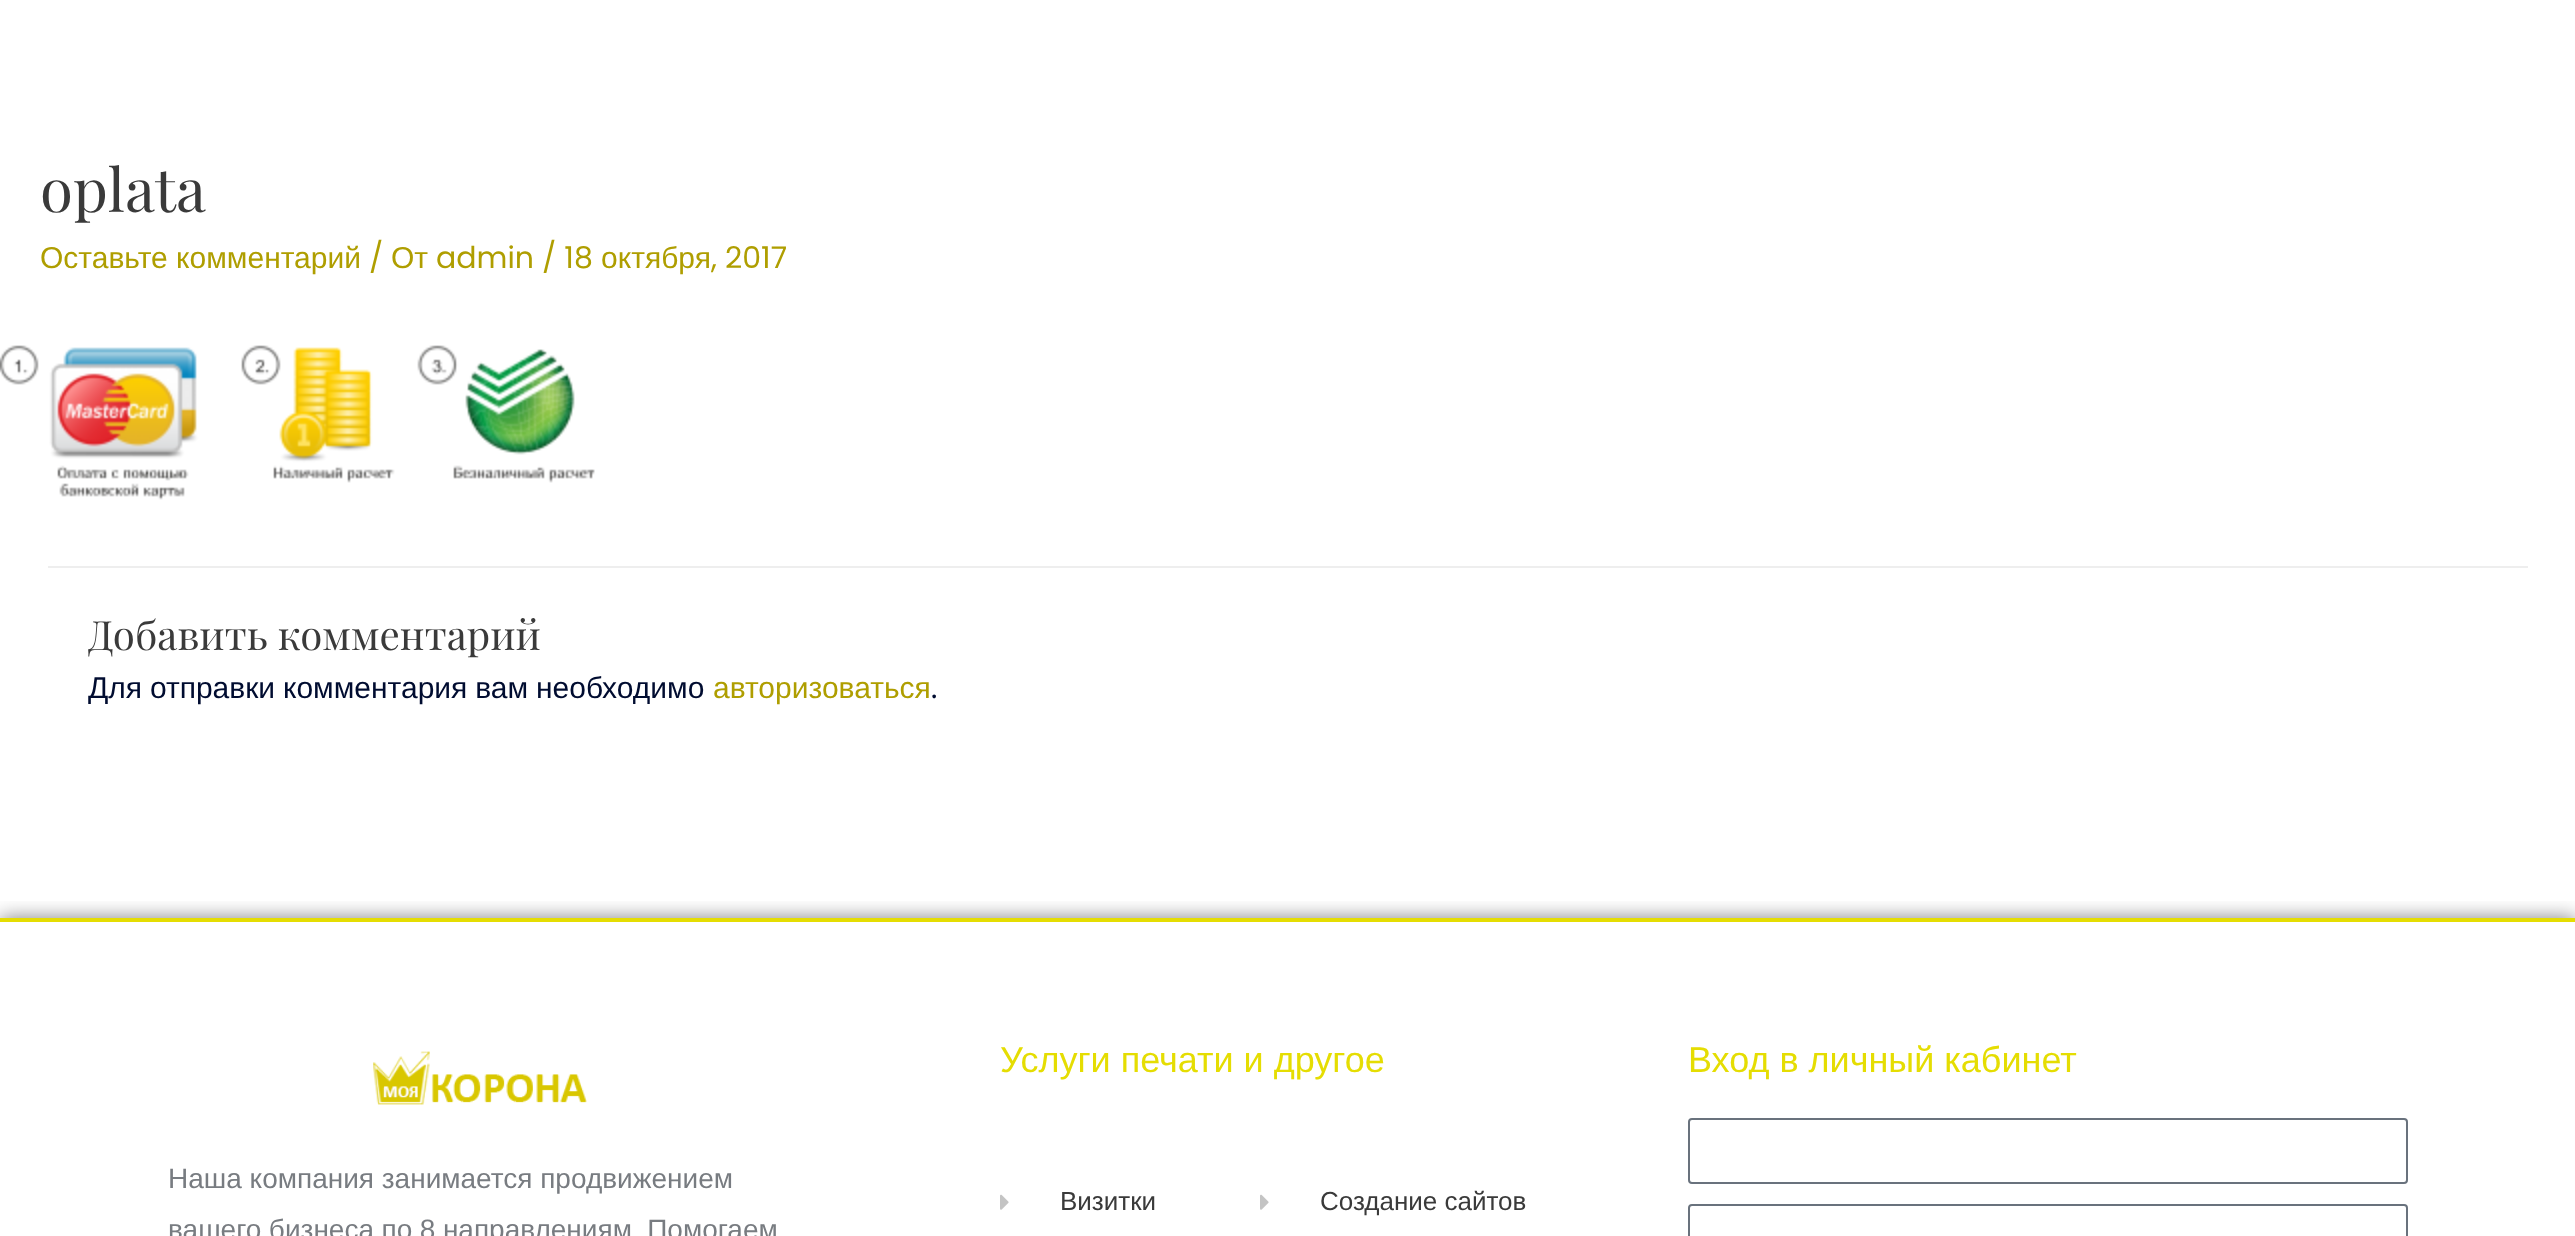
<svg xmlns="http://www.w3.org/2000/svg" width="2575" height="1236" viewBox="0 0 2575 1236">
  <defs>
    <clipPath id="clip1"><rect x="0" y="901" width="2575" height="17"/></clipPath>
  </defs>
  <rect width="100%" height="100%" fill="rgb(255,255,255)"/>
  <text x="40" y="212" font-family="Playfair Display" font-size="60" fill="rgb(58,58,58)">oplata</text>
  <text x="40" y="268" font-family="Liberation Sans" font-size="30" fill="rgb(175,158,0)">Оставьте комментарий</text>
  <text x="369" y="268" font-family="Poppins" font-size="30" fill="rgb(175,158,0)">/</text>
  <text x="391" y="268" font-family="Liberation Sans" font-size="30" fill="rgb(175,158,0)">От</text>
  <text x="436" y="268" font-family="Poppins" font-size="30" fill="rgb(175,158,0)">admin / 18</text>
  <text x="601" y="268" font-family="Liberation Sans" font-size="30" fill="rgb(175,158,0)">октября</text>
  <text x="711" y="268" font-family="Poppins" font-size="30" fill="rgb(175,158,0)">, 2017</text>
  <image x="0" y="345" width="595" height="155" href="pic1.png"/>
  <rect x="48" y="566" width="2480" height="2" fill="rgb(238,238,238)"/>
  <text x="88" y="650" font-family="Playfair Display" font-size="40.25" fill="rgb(58,58,58)">Добавить комментарий</text>
  <text x="88" y="698" word-spacing="-0.5" font-family="Liberation Sans" font-size="30" fill="rgb(0,12,48)">Для отправки комментария вам необходимо</text>
  <text x="713" y="698" font-family="Liberation Sans" font-size="30" fill="rgb(175,158,0)">авторизоваться</text>
  <text x="931" y="698" font-family="Poppins" font-size="30" fill="rgb(0,12,48)">.</text>
  <g clip-path="url(#clip1)">
    <rect x="0" y="918" width="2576" height="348" fill="rgba(0,0,0,0.5)" filter="blur(10px)"/>
  </g>
  <rect x="0" y="918" width="2575" height="4" fill="rgb(229,221,2)"/>
  <image x="373" y="1051" width="214" height="54" href="pic2.png"/>
  <g font-family="Liberation Sans" font-size="28" fill="rgb(120,124,129)">
    <text>
      <tspan x="168" y="1188">Наша компания занимается продвижением</tspan>
      <tspan x="168" y="1239" word-spacing="-0.25">вашего бизнеса по 8 направлениям. Помогаем</tspan>
    </text>
  </g>
  <text x="1000" y="1072" font-family="Liberation Sans" font-size="36" fill="rgb(229,221,2)">Услуги печати и другое</text>
  <image x="1000" y="1194" width="9" height="16" href="pic3.png"/>
  <text x="1060" y="1210" font-family="Liberation Sans" font-size="26" fill="rgb(58,58,58)">Визитки</text>
  <image x="1260" y="1194" width="9" height="16" href="pic3.png"/>
  <text x="1320" y="1210" font-family="Liberation Sans" font-size="26" fill="rgb(58,58,58)">Создание сайтов</text>
  <text x="1688" y="1072" font-family="Liberation Sans" font-size="36" fill="rgb(229,221,2)">Вход в личный кабинет</text>
  <rect x="1689" y="1119" width="718" height="64" rx="3" fill="none" stroke="rgb(105,114,125)" stroke-width="2"/>
  <rect x="1689" y="1205" width="718" height="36" rx="3" fill="none" stroke="rgb(105,114,125)" stroke-width="2"/>
</svg>
